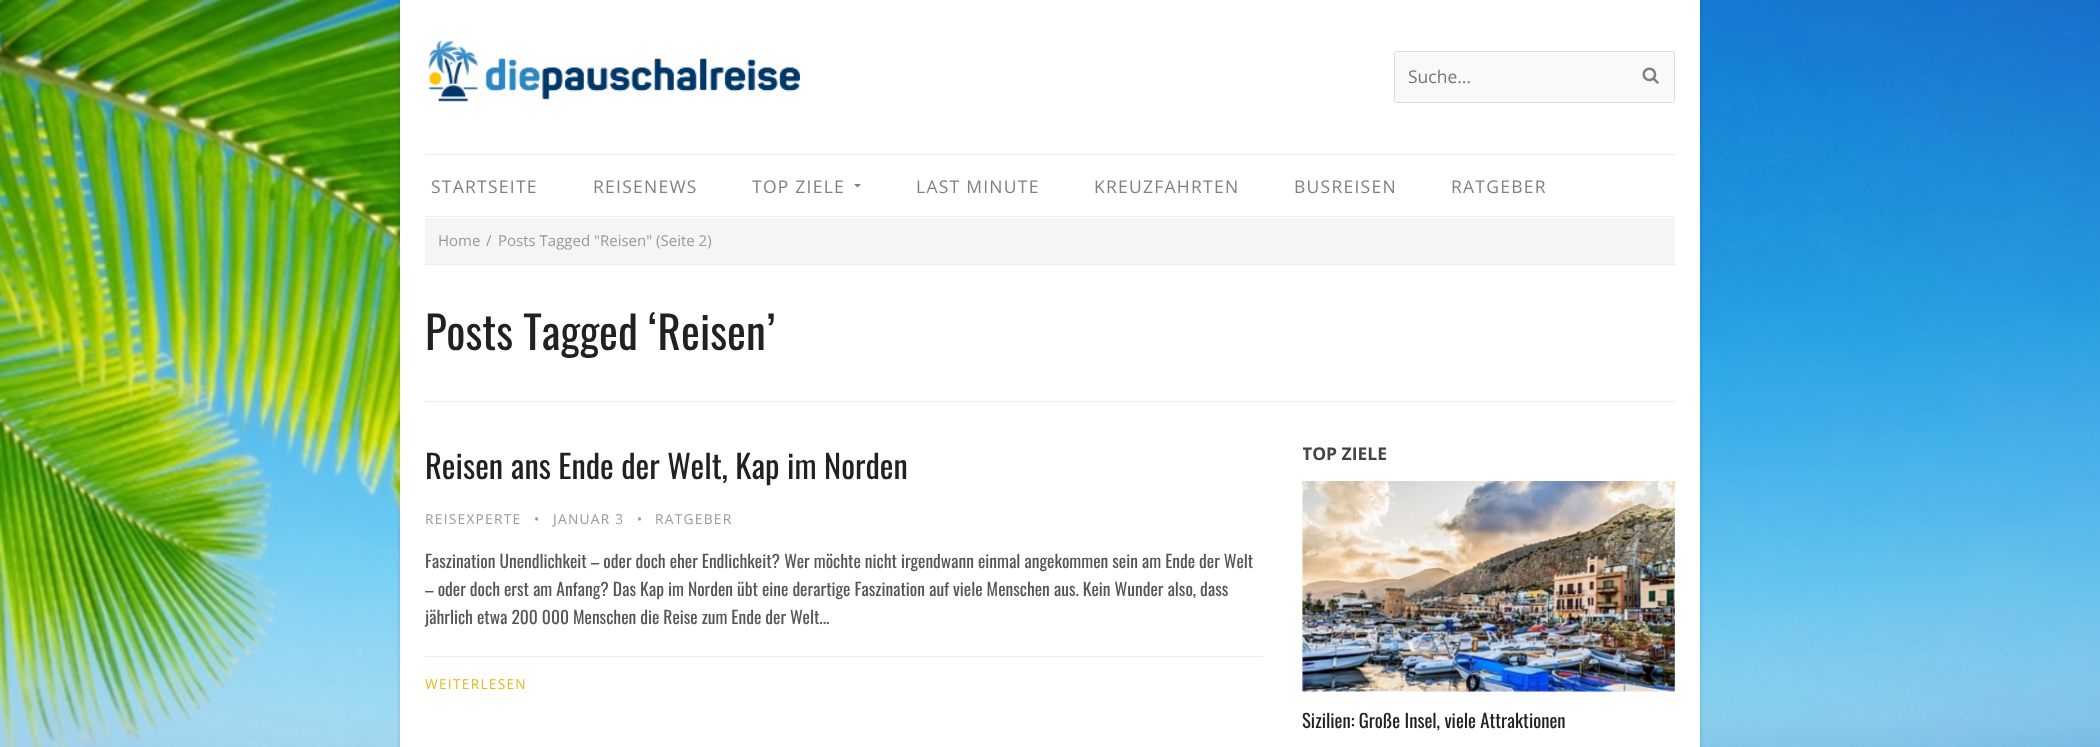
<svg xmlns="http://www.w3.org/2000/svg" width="2100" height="747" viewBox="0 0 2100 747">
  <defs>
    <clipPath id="clip1"><rect x="1303" y="440" width="372" height="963"/></clipPath>
  </defs>
  <rect width="100%" height="100%" fill="rgb(255,255,255)"/>
  <image x="0" y="0" width="2100" height="747" href="pic1.png"/>
  <rect x="400" y="0" width="1300" height="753" fill="rgba(0,0,0,0.15)" filter="blur(2px)"/>
  <rect x="400" y="0" width="1300" height="747" fill="rgb(255,255,255)"/>
  <rect x="425" y="216" width="1250" height="1" fill="rgb(238,238,238)"/>
  <image x="428" y="40" width="372" height="62" href="pic2.png"/>
  <rect x="1394.5" y="51.5" width="280" height="51" rx="2" fill="rgb(249,249,249)" stroke="rgb(221,221,221)"/>
  <text x="1408" y="83" font-family="Open Sans" font-size="17.5" fill="rgb(117,117,117)">Suche...</text>
  <image x="1642" y="67" width="17" height="17" href="pic3.png"/>
  <rect x="425" y="154" width="1250" height="1" fill="rgb(238,238,238)"/>
  <g font-family="Open Sans" font-size="17.5" letter-spacing="1.25" fill="rgb(128,128,128)">
    <text x="431" y="193">STARTSEITE</text>
    <text x="593" y="193">REISENEWS</text>
    <text x="752" y="193">TOP ZIELE</text>
  </g>
  <path d="M854 184H861L857.5 187.5Z" fill="rgb(128,128,128)"/>
  <g font-family="Open Sans" font-size="17.5" letter-spacing="1.25" fill="rgb(128,128,128)">
    <text x="916" y="193">LAST MINUTE</text>
    <text x="1094" y="193">KREUZFAHRTEN</text>
    <text x="1294" y="193">BUSREISEN</text>
    <text x="1451" y="193">RATGEBER</text>
  </g>
  <rect x="425" y="218" width="1250" height="46" fill="rgb(245,245,245)"/>
  <rect x="425" y="264" width="1250" height="1" fill="rgb(238,238,238)"/>
  <g font-family="Open Sans" font-size="15" fill="rgb(153,153,153)">
    <text x="438" y="246">Home</text>
    <text x="486" y="246">/</text>
    <text x="498" y="246">Posts Tagged "Reisen" (Seite 2)</text>
  </g>
  <rect x="425" y="401" width="1250" height="1" fill="rgb(238,238,238)"/>
  <text x="425" y="350" font-family="Oswald" font-size="45" fill="rgb(33,33,33)">Posts Tagged ‘Reisen’</text>
  <text x="425" y="479" font-family="Oswald" font-size="32.5" fill="rgb(33,33,33)">Reisen ans Ende der Welt, Kap im Norden</text>
  <g font-family="Open Sans" font-size="13.75" letter-spacing="1.25" fill="rgb(153,153,153)">
    <text x="425" y="524">REISEXPERTE</text>
    <text x="534" y="524">•</text>
    <text x="553" y="524">JANUAR 3</text>
    <text x="637" y="524">•</text>
    <text x="655" y="524">RATGEBER</text>
  </g>
  <g font-family="Oswald" font-size="17.5" fill="rgb(85,85,85)">
    <text>
      <tspan x="425" y="568">Faszination Unendlichkeit – oder doch eher Endlichkeit? Wer möchte nicht irgendwann einmal angekommen sein am Ende der Welt</tspan>
      <tspan x="425" y="596">– oder doch erst am Anfang? Das Kap im Norden übt eine derartige Faszination auf viele Menschen aus. Kein Wunder also, dass</tspan>
      <tspan x="425" y="624">jährlich etwa 200 000 Menschen die Reise zum Ende der Welt...</tspan>
    </text>
  </g>
  <rect x="425" y="656" width="838" height="1" fill="rgb(238,238,238)"/>
  <text x="425" y="689" font-family="Open Sans" font-size="13.75" letter-spacing="1.25" fill="rgb(232,183,26)">WEITERLESEN</text>
  <g clip-path="url(#clip1)">
    <text x="1302" y="460" font-family="Open Sans" font-size="17.5" font-weight="bold" fill="rgb(68,68,68)">TOP ZIELE</text>
  </g>
  <image x="1302" y="481" width="373" height="211" href="pic4.png"/>
  <text x="1302" y="728" font-family="Oswald" font-size="18.75" fill="rgb(33,33,33)">Sizilien: Große Insel, viele Attraktionen</text>
</svg>
